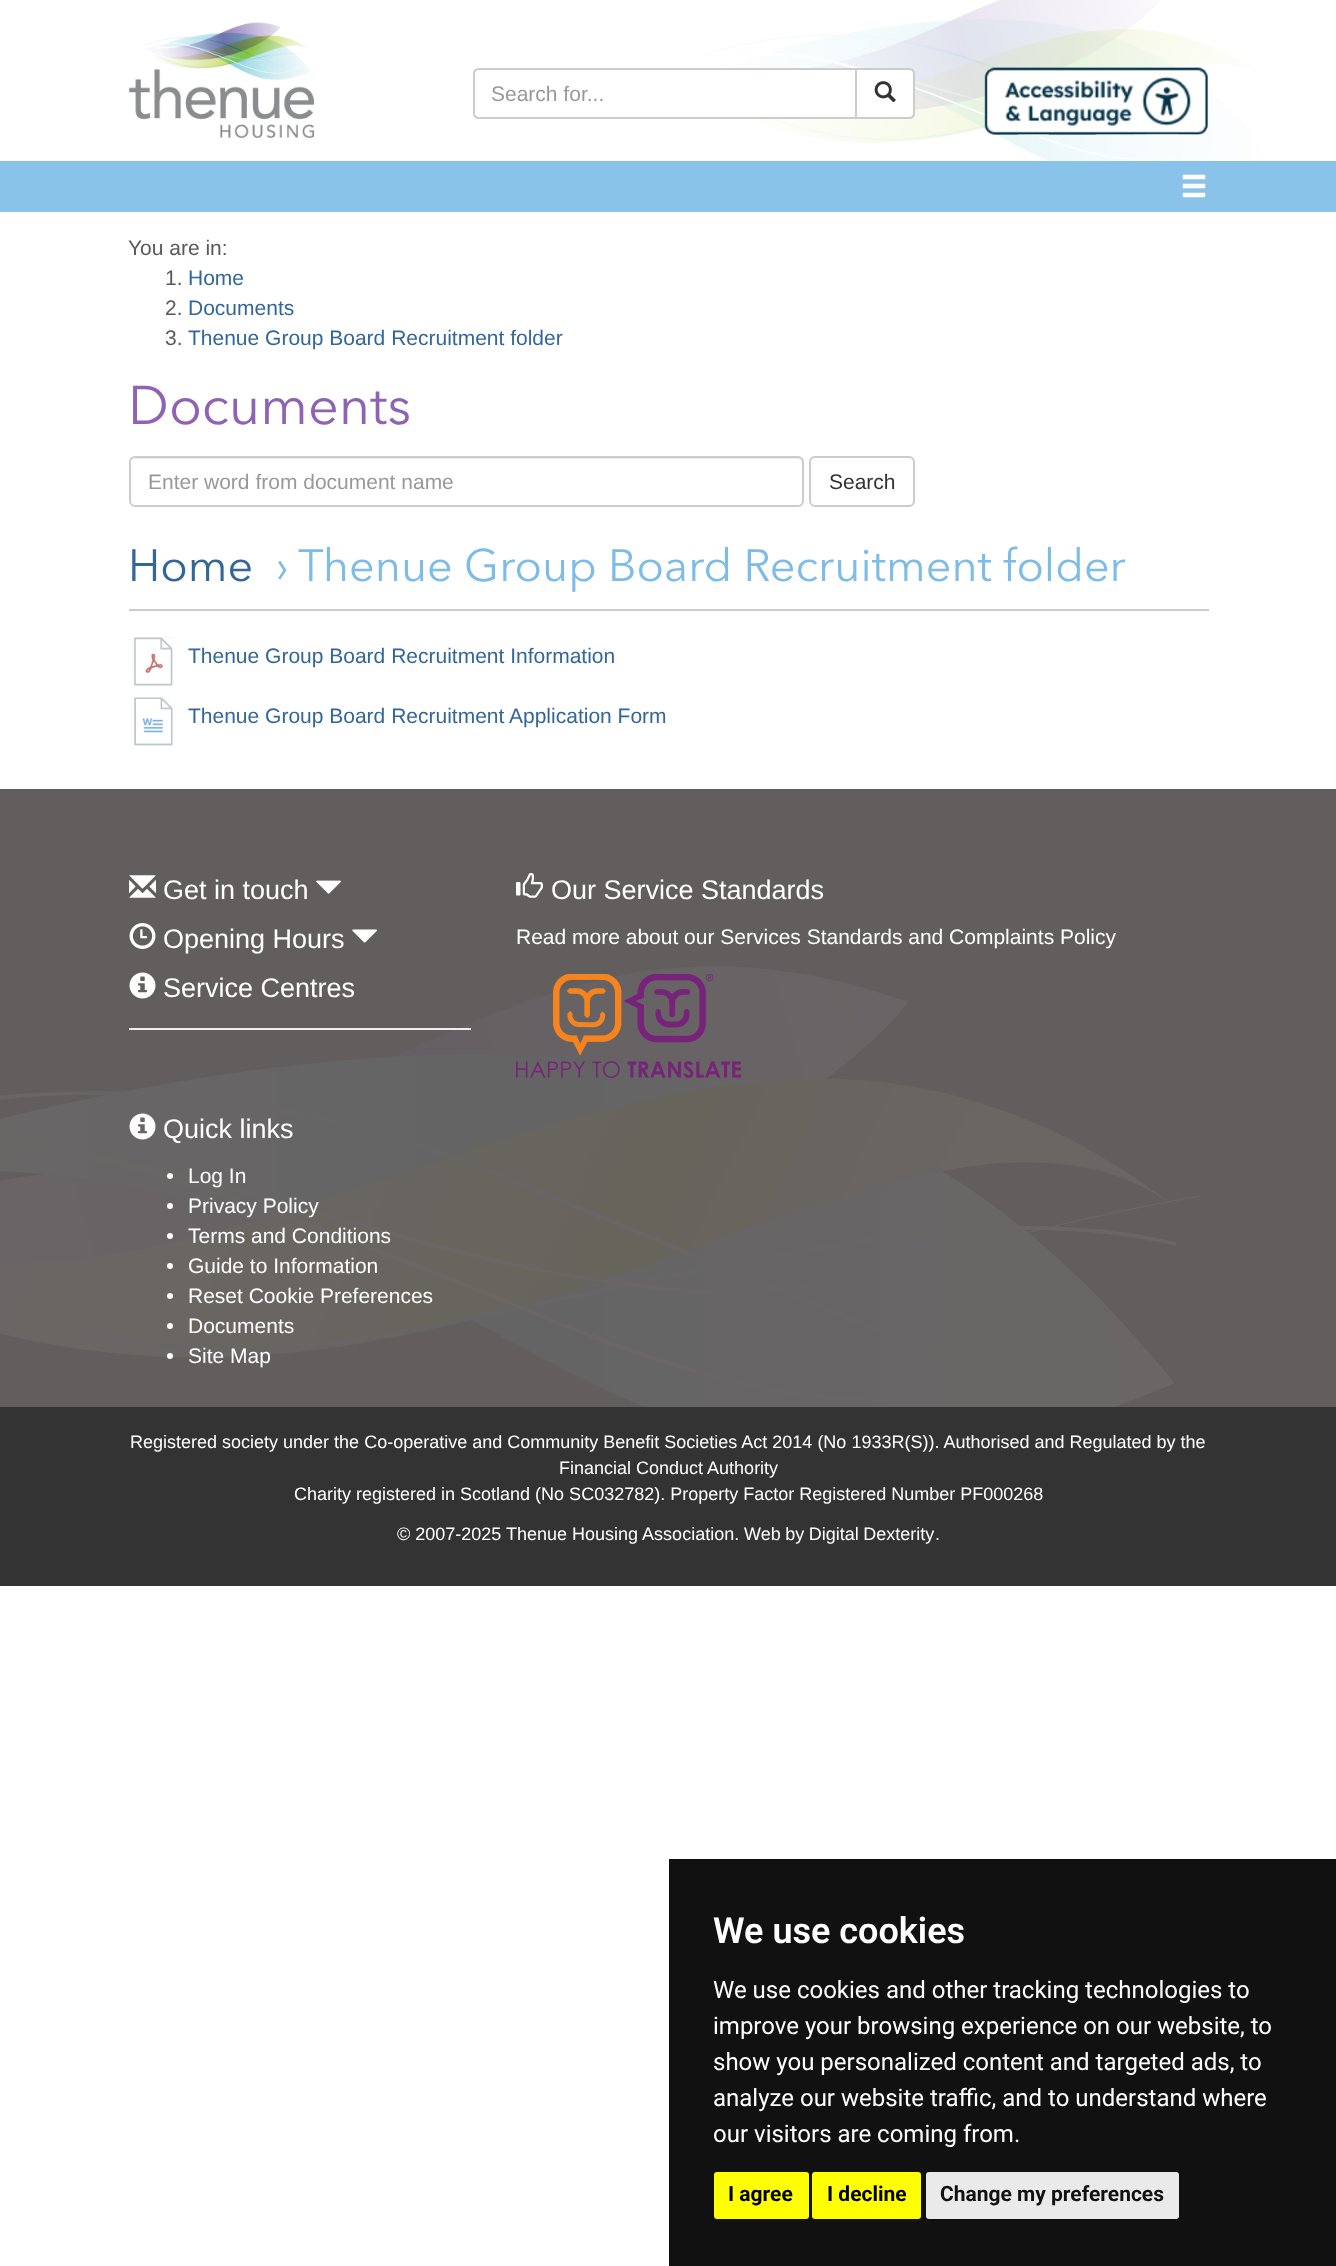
<svg xmlns="http://www.w3.org/2000/svg" width="1336" height="2266" viewBox="0 0 1336 2266">
  <rect width="100%" height="100%" fill="rgb(255,255,255)"/>
  <image x="129" y="22" width="185" height="116" href="pic1.png"/>
  <image x="705" y="0" width="555" height="165" href="pic4.png"/>
  <path d="M479 69H856V118H479C476 118 474 116 474 113V74C474 71 476 69 479 69Z" fill="rgb(255,255,255)" stroke="rgb(204,204,204)" stroke-width="2"/>
  <text x="491" y="101" font-family="Liberation Sans" font-size="21" fill="rgb(153,153,153)">Search for...</text>
  <path d="M856 69H909C912 69 914 71 914 74V113C914 116 912 118 909 118H856Z" fill="rgb(255,255,255)" stroke="rgb(204,204,204)" stroke-width="2"/>
  <image x="874" y="81" width="22" height="22" href="pic2.png"/>
  <image x="984" y="67" width="225" height="68" href="pic3.png"/>
  <rect x="0" y="161" width="1336" height="51" fill="rgba(125,188,231,0.9)"/>
  <image x="1182" y="174" width="24" height="24" href="pic5.png"/>
  <g font-family="Liberation Sans" font-size="21" fill="rgb(89,89,89)">
    <text x="128" y="255">You are in:</text>
    <text x="165" y="285">1.</text>
  </g>
  <text x="188" y="285" font-family="Liberation Sans" font-size="21" fill="rgb(51,102,153)">Home</text>
  <text x="165" y="315" font-family="Liberation Sans" font-size="21" fill="rgb(89,89,89)">2.</text>
  <text x="188" y="315" font-family="Liberation Sans" font-size="21" fill="rgb(51,102,153)">Documents</text>
  <text x="165" y="345" font-family="Liberation Sans" font-size="21" fill="rgb(89,89,89)">3.</text>
  <text x="188" y="345" font-family="Liberation Sans" font-size="21" fill="rgb(51,102,153)">Thenue Group Board Recruitment folder</text>
  <text x="128" y="424" font-family="Avenir Next" font-size="54" fill="rgb(143,99,180)">Documents</text>
  <path d="M135 459H798C800 459 802 461 802 464V502L801 505C802 504 803 502 803 501V463C803 460 801 458 798 458H136C134 458 133 459 132 460Z" fill="rgb(236,236,236)"/>
  <rect x="130" y="457" width="673" height="49" rx="5" fill="none" stroke="rgb(204,204,204)" stroke-width="2"/>
  <text x="148" y="489" font-family="Liberation Sans" font-size="21" fill="rgb(153,153,153)">Enter word from document name</text>
  <rect x="810" y="457" width="104" height="49" rx="5" fill="none" stroke="rgb(204,204,204)" stroke-width="2"/>
  <text x="829" y="489" font-family="Liberation Sans" font-size="21" fill="rgb(51,51,51)">Search</text>
  <rect x="129" y="609" width="1080" height="2" fill="rgb(204,204,204)"/>
  <text x="128" y="581" font-family="Avenir Next" font-size="45" fill="rgb(51,102,153)">Home</text>
  <text x="275" y="581" font-family="Avenir Next" font-size="45" fill="rgb(125,188,231)">› Thenue Group Board Recruitment folder</text>
  <image x="133" y="637" width="40" height="49" href="pic6.png"/>
  <text x="188" y="663" font-family="Liberation Sans" font-size="21" fill="rgb(51,102,153)">Thenue Group Board Recruitment Information</text>
  <image x="133" y="697" width="40" height="49" href="pic7.png"/>
  <text x="188" y="723" font-family="Liberation Sans" font-size="21" fill="rgb(51,102,153)">Thenue Group Board Recruitment Application Form</text>
  <rect x="0" y="789" width="1336" height="618" fill="rgb(98,94,94)"/>
  <image x="129" y="875" width="27" height="23" href="pic8.png"/>
  <text x="163" y="899" font-family="Liberation Sans" font-size="27" fill="rgb(255,255,255)">Get in touch</text>
  <image x="316" y="880" width="25" height="14" href="pic9.png"/>
  <image x="129" y="923" width="27" height="26" href="pic10.png"/>
  <text x="163" y="948" font-family="Liberation Sans" font-size="27" fill="rgb(255,255,255)">Opening Hours</text>
  <image x="352" y="929" width="25" height="14" href="pic11.png"/>
  <image x="0" y="966" width="1200" height="441" href="pic16.png"/>
  <image x="129" y="972" width="27" height="27" href="pic12.png"/>
  <text x="163" y="997" font-family="Liberation Sans" font-size="27" fill="rgb(255,255,255)">Service Centres</text>
  <rect x="129" y="1028" width="342" height="2" fill="rgb(238,238,238)"/>
  <image x="516" y="873" width="27" height="25" href="pic13.png"/>
  <text x="551" y="899" font-family="Liberation Sans" font-size="27" fill="rgb(255,255,255)">Our Service Standards</text>
  <text x="516" y="944" font-family="Liberation Sans" font-size="21" fill="rgb(255,255,255)">Read more about our Services Standards and Complaints Policy</text>
  <image x="516" y="974" width="225" height="104" href="pic14.png"/>
  <image x="129" y="1113" width="27" height="27" href="pic15.png"/>
  <text x="163" y="1138" font-family="Liberation Sans" font-size="27" fill="rgb(255,255,255)">Quick links</text>
  <circle cx="170" cy="1176" r="3" fill="rgb(255,255,255)"/>
  <text x="188" y="1183" font-family="Liberation Sans" font-size="21" fill="rgb(255,255,255)">Log In</text>
  <circle cx="170" cy="1206" r="3" fill="rgb(255,255,255)"/>
  <text x="188" y="1213" font-family="Liberation Sans" font-size="21" fill="rgb(255,255,255)">Privacy Policy</text>
  <circle cx="170" cy="1236" r="3" fill="rgb(255,255,255)"/>
  <text x="188" y="1243" font-family="Liberation Sans" font-size="21" fill="rgb(255,255,255)">Terms and Conditions</text>
  <circle cx="170" cy="1266" r="3" fill="rgb(255,255,255)"/>
  <text x="188" y="1273" font-family="Liberation Sans" font-size="21" fill="rgb(255,255,255)">Guide to Information</text>
  <circle cx="170" cy="1296" r="3" fill="rgb(255,255,255)"/>
  <text x="188" y="1303" font-family="Liberation Sans" font-size="21" fill="rgb(255,255,255)">Reset Cookie Preferences</text>
  <circle cx="170" cy="1326" r="3" fill="rgb(255,255,255)"/>
  <text x="188" y="1333" font-family="Liberation Sans" font-size="21" fill="rgb(255,255,255)">Documents</text>
  <circle cx="170" cy="1356" r="3" fill="rgb(255,255,255)"/>
  <text x="188" y="1363" font-family="Liberation Sans" font-size="21" fill="rgb(255,255,255)">Site Map</text>
  <rect x="0" y="1407" width="1336" height="179" fill="rgb(51,51,51)"/>
  <g font-family="Liberation Sans" font-size="18" fill="rgb(255,255,255)">
    <text x="130" y="1448">Registered society under the Co-operative and Community Benefit Societies Act 2014 (No 1933R(S)). Authorised and Regulated by the</text>
    <text x="559" y="1474">Financial Conduct Authority</text>
    <text x="294" y="1500">Charity registered in Scotland (No SC032782). Property Factor Registered Number PF000268</text>
    <text x="397" y="1540">© 2007-2025 Thenue Housing Association.</text>
    <text x="744" y="1540" word-spacing="-0.5">Web by Digital Dexterity</text>
    <text x="935" y="1540">.</text>
  </g>
  <rect x="669" y="1859" width="667" height="407" fill="rgb(17,17,17)"/>
  <text x="713" y="1943" font-family="Roboto" font-size="36" font-weight="600" fill="rgb(255,255,255)">We use cookies</text>
  <g font-family="Roboto" font-size="24" fill="rgb(255,255,255)">
    <text>
      <tspan x="713" y="1998">We use cookies and other tracking technologies to</tspan>
      <tspan x="713" y="2034">improve your browsing experience on our website, to</tspan>
      <tspan x="713" y="2070">show you personalized content and targeted ads, to</tspan>
      <tspan x="713" y="2106">analyze our website traffic, and to understand where</tspan>
      <tspan x="713" y="2142">our visitors are coming from.</tspan>
    </text>
  </g>
  <rect x="714" y="2172" width="95" height="47" rx="3" fill="rgb(255,255,0)"/>
  <text x="728" y="2201" font-family="Roboto" font-size="21" font-weight="bold" fill="rgb(0,0,0)">I agree</text>
  <rect x="812" y="2172" width="109" height="47" rx="3" fill="rgb(255,255,0)"/>
  <text x="827" y="2201" font-family="Roboto" font-size="21" font-weight="bold" fill="rgb(0,0,0)">I decline</text>
  <rect x="926" y="2172" width="253" height="47" rx="3" fill="rgb(234,234,234)"/>
  <text x="940" y="2201" font-family="Roboto" font-size="21" font-weight="bold" fill="rgb(17,17,17)">Change my preferences</text>
</svg>
